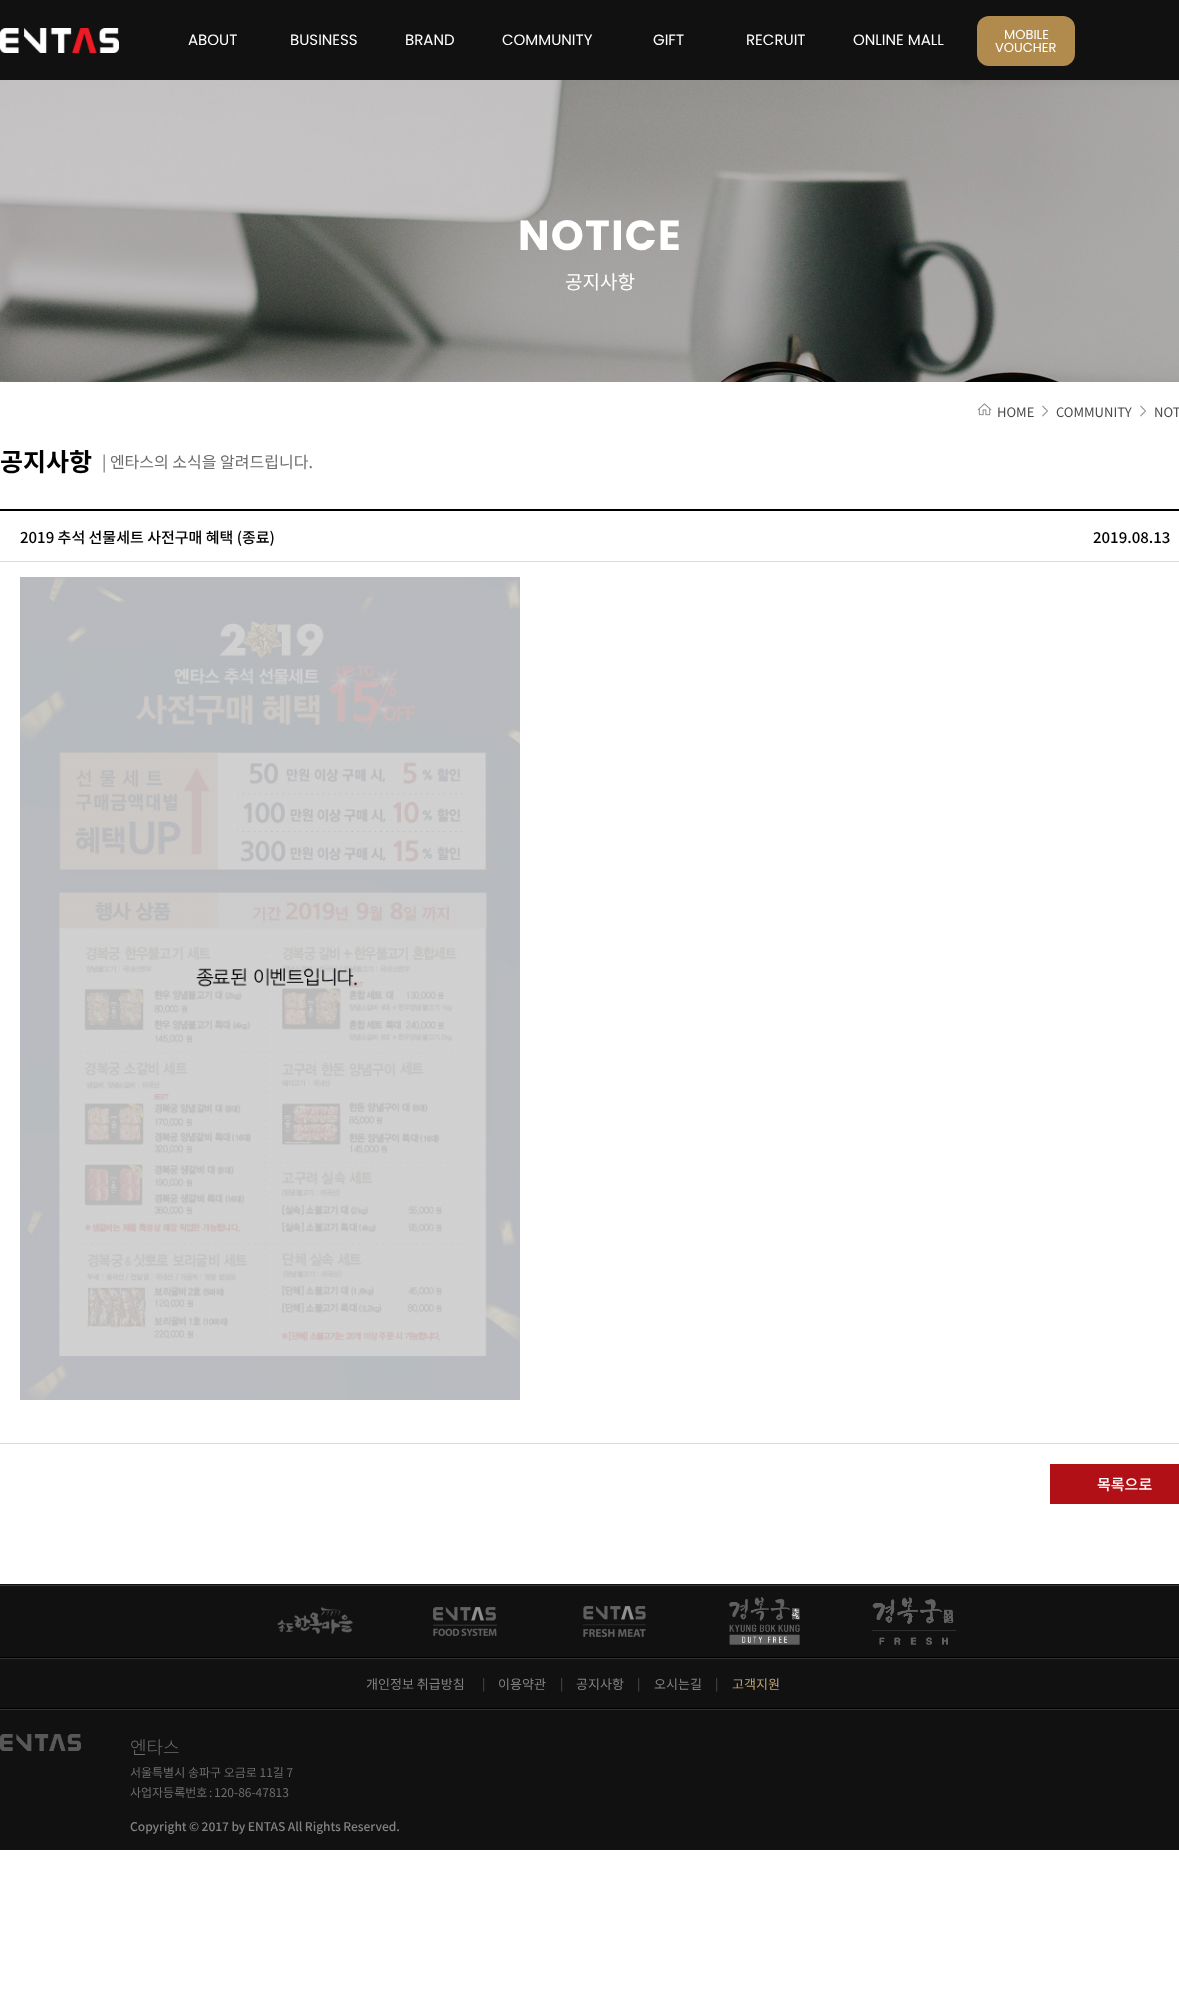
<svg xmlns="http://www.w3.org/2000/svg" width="1179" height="2006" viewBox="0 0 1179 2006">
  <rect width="100%" height="100%" fill="rgb(255,255,255)"/>
  <rect x="0" y="0" width="1179" height="80" fill="rgb(17,17,17)"/>
  <image x="0" y="28" width="119" height="25" href="pic1.png"/>
  <g font-family="Poppins" font-size="15" fill="rgb(255,255,255)">
    <text x="188" y="45">ABOUT</text>
    <text x="290" y="45">BUSINESS</text>
    <text x="405" y="45">BRAND</text>
    <text x="502" y="45">COMMUNITY</text>
    <text x="653" y="45">GIFT</text>
    <text x="746" y="45">RECRUIT</text>
    <text x="853" y="45">ONLINE MALL</text>
  </g>
  <rect x="977" y="16" width="98" height="50" rx="12" fill="rgb(177,139,78)"/>
  <g font-family="Poppins" font-size="13" fill="rgb(255,255,255)">
    <text x="1004" y="39">MOBILE</text>
    <text x="995" y="52">VOUCHER</text>
  </g>
  <image x="0" y="80" width="1179" height="302" href="pic2.png"/>
  <text x="518" y="250" font-family="Poppins" font-size="42" font-weight="bold" letter-spacing="1.25" fill="rgb(255,255,255)">NOTICE</text>
  <text x="565" y="289" font-family="Noto Sans KR" font-size="19" fill="rgb(255,255,255)">공지사항</text>
  <image x="977" y="403" width="15" height="13" href="pic3.png"/>
  <text x="997" y="417" font-family="Noto Sans KR" font-size="13" fill="rgb(73,73,73)">HOME</text>
  <image x="1042" y="405" width="6" height="12" href="pic4.png"/>
  <text x="1056" y="417" font-family="Noto Sans KR" font-size="13" fill="rgb(73,73,73)">COMMUNITY</text>
  <image x="1140" y="405" width="6" height="12" href="pic4.png"/>
  <text x="1154" y="417" font-family="Noto Sans KR" font-size="13" fill="rgb(73,73,73)">NOT</text>
  <text x="0" y="471" font-family="Noto Sans KR" font-size="25" font-weight="bold" fill="rgb(0,0,0)">공지사항</text>
  <text x="102" y="468" font-family="Noto Sans KR" font-size="16" fill="rgb(109,109,109)">| 엔타스의 소식을 알려드립니다.</text>
  <rect x="0" y="509" width="1179" height="2" fill="rgb(0,0,0)"/>
  <rect x="0" y="561" width="1179" height="1" fill="rgb(219,219,219)"/>
  <g font-family="Noto Sans KR" font-size="15" font-weight="500" fill="rgb(0,0,0)">
    <text x="20" y="543">2019 추석 선물세트 사전구매 혜택 (종료)</text>
    <text x="1093" y="543">2019.08.13</text>
  </g>
  <rect x="0" y="1443" width="1179" height="1" fill="rgb(219,219,219)"/>
  <image x="20" y="577" width="500" height="823" href="pic5.png"/>
  <rect x="1050" y="1464" width="129" height="40" fill="rgb(177,17,22)"/>
  <text x="1097" y="1490" font-family="Noto Sans KR" font-size="15" font-weight="500" fill="rgb(255,255,255)">목록으로</text>
  <rect x="0" y="1584" width="1179" height="266" fill="rgb(17,17,17)"/>
  <rect x="0" y="1585" width="1179" height="1" fill="rgb(54,54,54)"/>
  <image x="277" y="1607" width="76" height="27" href="pic6.png"/>
  <image x="433" y="1607" width="64" height="29" href="pic7.png"/>
  <image x="583" y="1606" width="63" height="31" href="pic8.png"/>
  <image x="729" y="1597" width="71" height="48" href="pic9.png"/>
  <image x="872" y="1597" width="85" height="48" href="pic10.png"/>
  <rect x="0" y="1657" width="1179" height="1" fill="rgb(0,0,0)"/>
  <rect x="0" y="1658" width="1179" height="1" fill="rgb(51,51,51)"/>
  <text x="366" y="1689" font-family="Noto Sans KR" font-size="13" fill="rgb(129,130,130)">개인정보 취급방침</text>
  <text x="482" y="1688" font-family="Noto Sans KR" font-size="12" font-weight="500" fill="rgb(73,73,73)">|</text>
  <text x="498" y="1689" font-family="Noto Sans KR" font-size="13" fill="rgb(129,130,130)">이용약관</text>
  <text x="560" y="1688" font-family="Noto Sans KR" font-size="12" font-weight="500" fill="rgb(73,73,73)">|</text>
  <text x="576" y="1689" font-family="Noto Sans KR" font-size="13" fill="rgb(129,130,130)">공지사항</text>
  <text x="637" y="1688" font-family="Noto Sans KR" font-size="12" font-weight="500" fill="rgb(73,73,73)">|</text>
  <text x="654" y="1689" font-family="Noto Sans KR" font-size="13" fill="rgb(129,130,130)">오시는길</text>
  <text x="715" y="1688" font-family="Noto Sans KR" font-size="12" font-weight="500" fill="rgb(73,73,73)">|</text>
  <text x="732" y="1689" font-family="Noto Sans KR" font-size="13" fill="rgb(191,162,115)">고객지원</text>
  <rect x="0" y="1708" width="1179" height="1" fill="rgb(0,0,0)"/>
  <rect x="0" y="1709" width="1179" height="1" fill="rgb(51,51,51)"/>
  <image x="0" y="1734" width="81" height="17" href="pic11.png"/>
  <text x="130" y="1754" font-family="Noto Sans KR" font-size="18" font-weight="300" fill="rgb(109,109,109)">엔타스</text>
  <g font-family="Noto Sans KR" font-size="12" fill="rgb(109,109,109)">
    <text>
      <tspan x="130" y="1777">서울특별시 송파구 오금로 11길 7</tspan>
      <tspan x="130" y="1797" word-spacing="-1">사업자등록번호 : 120-86-47813</tspan>
    </text>
  </g>
  <text x="130" y="1831" word-spacing="-0.25" font-family="Noto Sans KR" font-size="12" font-weight="500" fill="rgb(129,130,130)">Copyright © 2017 by ENTAS All Rights Reserved.</text>
</svg>
